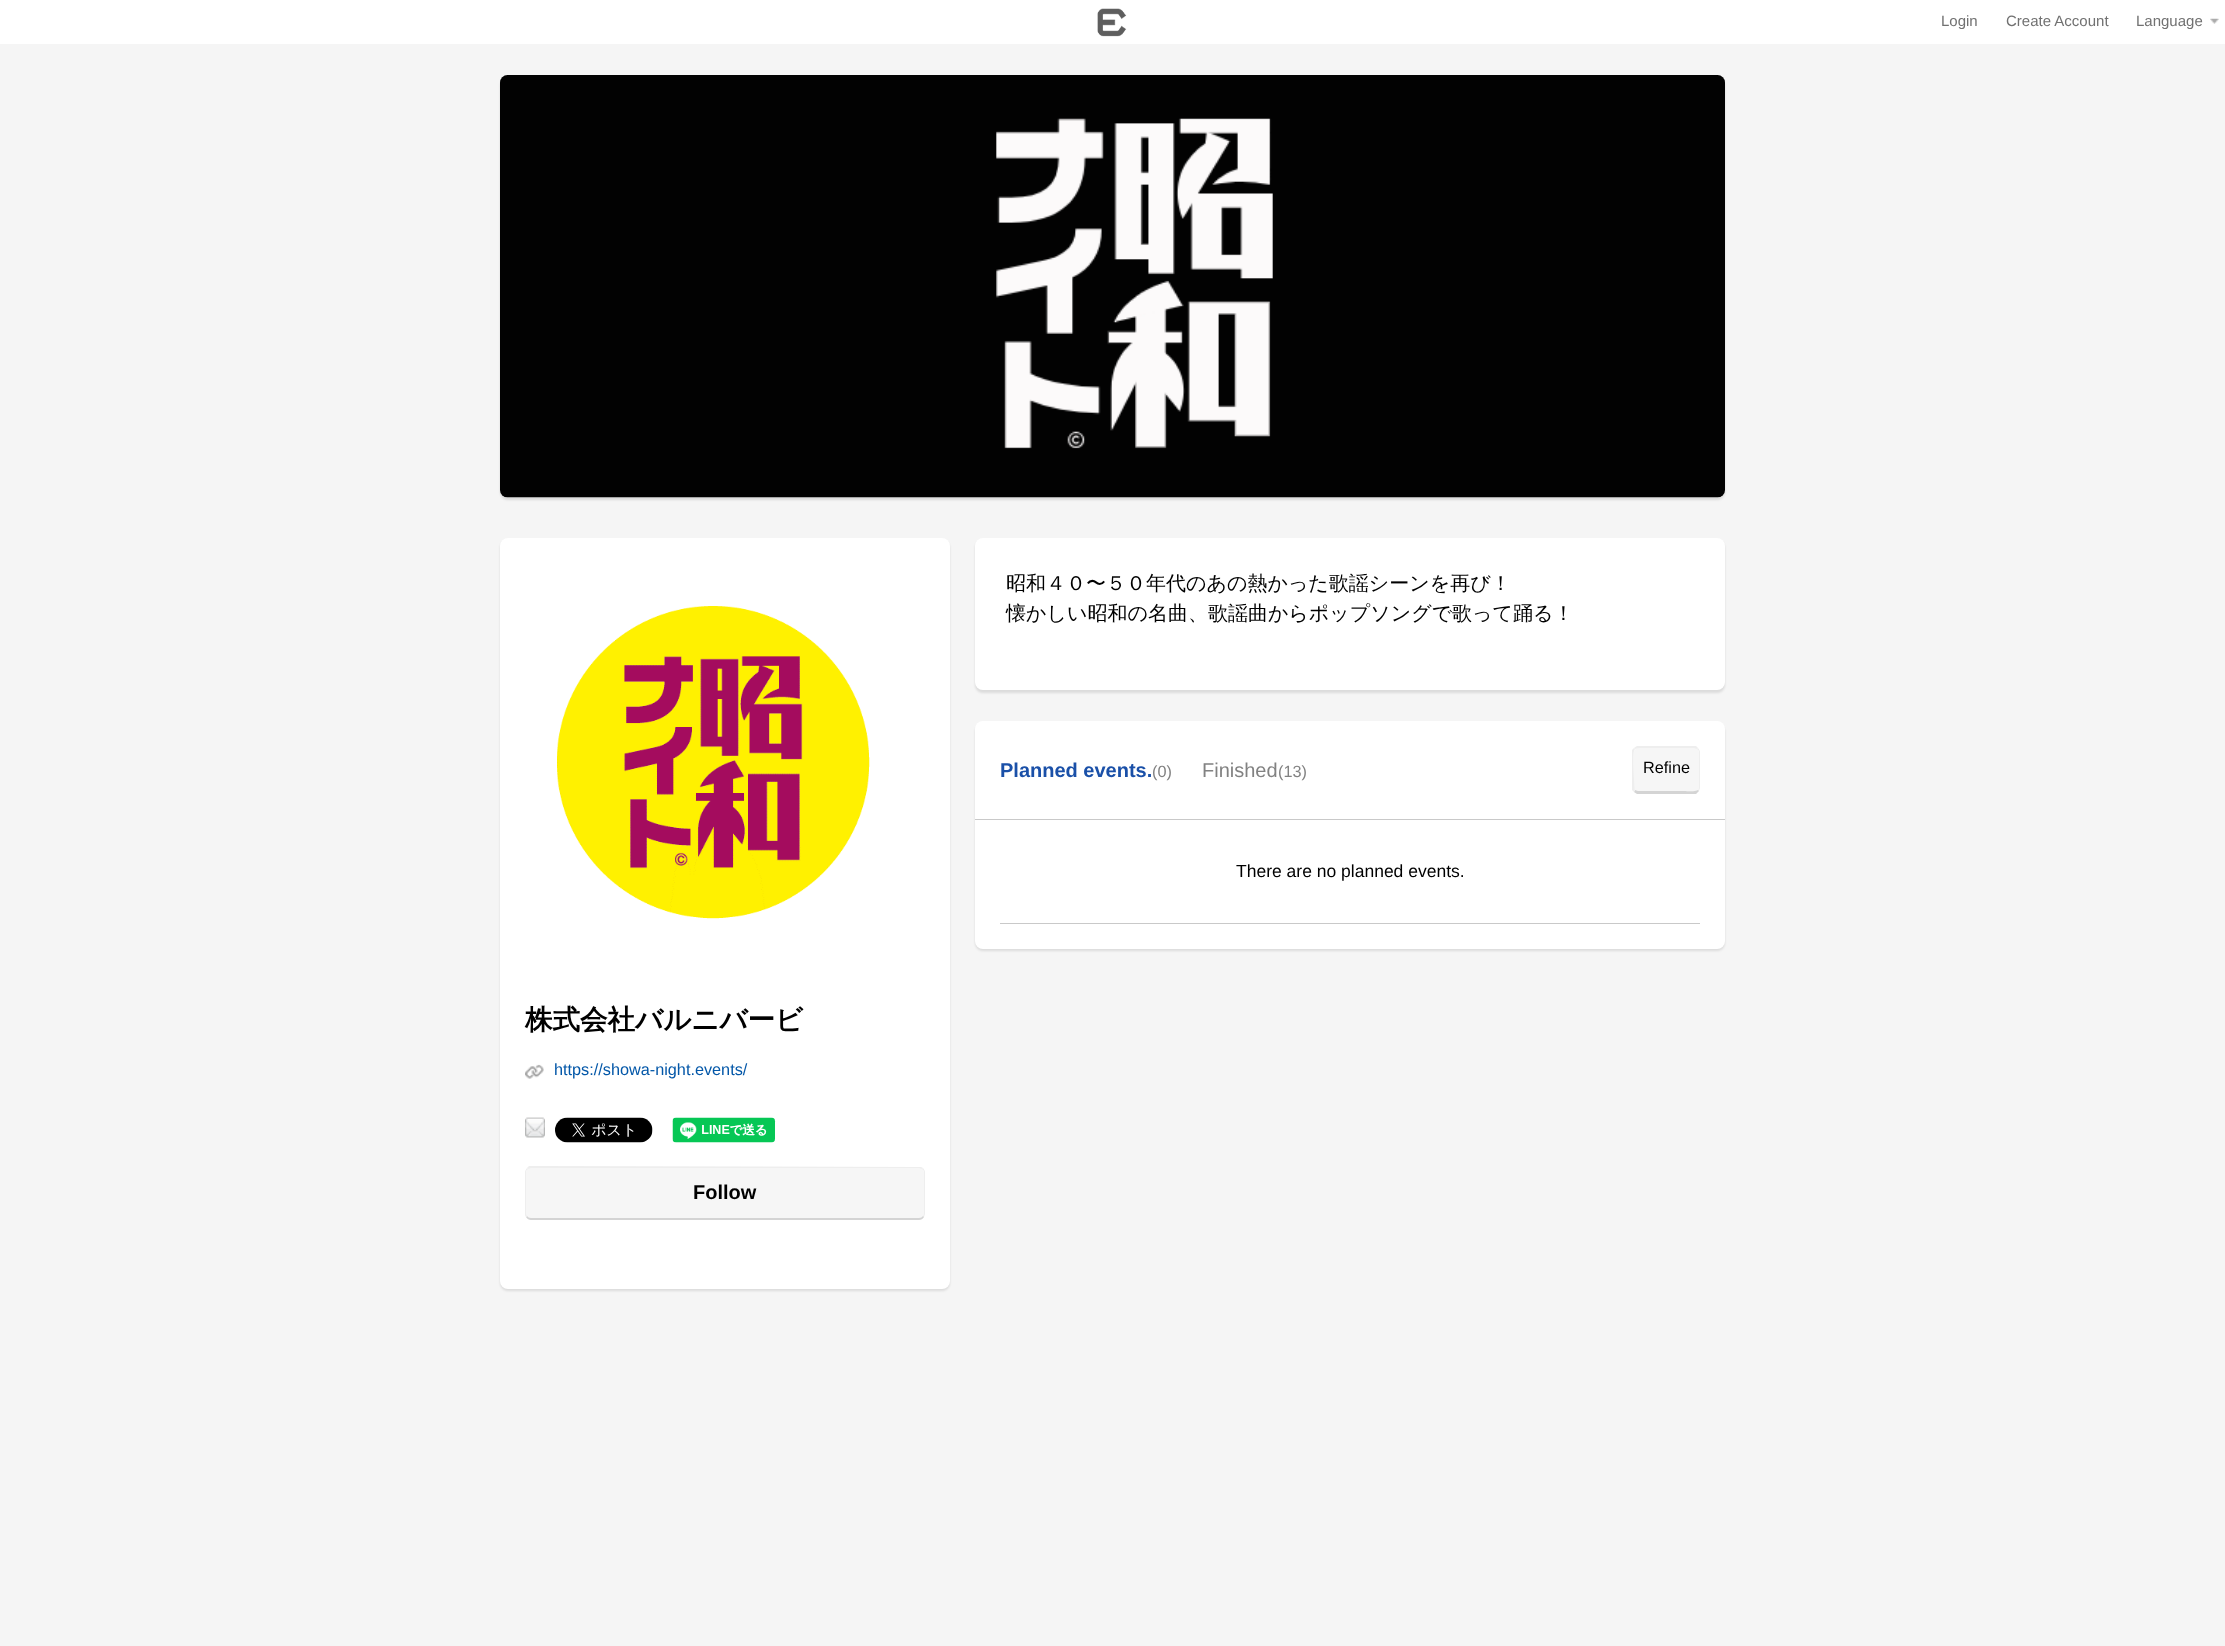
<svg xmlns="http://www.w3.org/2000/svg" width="2225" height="1646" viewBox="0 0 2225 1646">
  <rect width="100%" height="100%" fill="rgb(245,245,245)"/>
  <rect x="0" y="0" width="2225" height="44" fill="rgb(255,255,255)"/>
  <image x="1097" y="8" width="30" height="29" href="pic1.png"/>
  <g font-family="Liberation Sans" font-size="15" fill="rgb(113,113,113)">
    <text x="1941" y="26">Login</text>
    <text x="2006" y="26">Create Account</text>
  </g>
  <image x="2210" y="18" width="9" height="6" href="pic2.png"/>
  <text x="2136" y="26" font-family="Liberation Sans" font-size="15" fill="rgb(113,113,113)">Language</text>
  <rect x="500" y="78" width="1225" height="422" rx="8" fill="rgba(0,0,0,0.1)" filter="blur(1px)"/>
  <image x="500" y="75" width="1225" height="423" href="pic3.png"/>
  <rect x="975" y="540" width="750" height="153" rx="8" fill="rgba(0,0,0,0.1)" filter="blur(1px)"/>
  <rect x="975" y="538" width="750" height="152" rx="8" fill="rgb(255,255,255)"/>
  <g font-family="WenQuanYi Zen Hei" font-size="20" font-weight="500" fill="rgb(0,0,0)">
    <text>
      <tspan x="1006" y="590">昭和４０〜５０年代のあの熱かった歌謡シーンを再び！</tspan>
      <tspan x="1006" y="620">懐かしい昭和の名曲、歌謡曲からポップソングで歌って踊る！</tspan>
    </text>
  </g>
  <rect x="975" y="724" width="750" height="227" rx="8" fill="rgba(0,0,0,0.1)" filter="blur(1px)"/>
  <rect x="975" y="721" width="750" height="228" rx="8" fill="rgb(255,255,255)"/>
  <rect x="975" y="819" width="750" height="1" fill="rgb(201,201,201)"/>
  <text x="1000" y="777" font-family="Liberation Sans" font-size="20" font-weight="bold" fill="rgb(26,80,168)">Planned events.</text>
  <text x="1152" y="777" font-family="Liberation Sans" font-size="16.25" fill="rgb(130,130,130)">(0)</text>
  <text x="1202" y="777" font-family="Liberation Sans" font-size="20" fill="rgb(130,130,130)">Finished</text>
  <text x="1278" y="777" font-family="Liberation Sans" font-size="16.25" fill="rgb(130,130,130)">(13)</text>
  <path d="M1639 748H1694C1697 748 1699 750 1699 752V788C1699 790 1697 791 1694 791H1639C1636 791 1634 790 1634 788V752C1634 750 1636 748 1639 748Z" fill="rgb(246,246,246)"/>
  <path d="M1639 748L1635 749L1634 748L1637 746H1696L1698 748L1697 749L1694 748Z" fill="rgb(238,238,238)"/>
  <path d="M1700 788V752C1700 751 1699 749 1698 748L1697 749L1699 751V788L1698 790L1699 791Z" fill="rgb(238,238,238)"/>
  <path d="M1637 794L1634 792L1635 790L1638 791H1685C1686 791 1695 792 1698 790L1699 791L1696 794Z" fill="rgb(212,212,212)"/>
  <path d="M1632 750L1634 748L1635 749L1634 751C1633 754 1634 788 1635 790L1634 792L1632 790Z" fill="rgb(238,238,238)"/>
  <text x="1643" y="773" font-family="Liberation Sans" font-size="16.25" fill="rgb(0,0,0)">Refine</text>
  <rect x="1000" y="923" width="700" height="1" fill="rgb(201,201,201)"/>
  <text x="1236" y="877" font-family="Liberation Sans" font-size="17.5" fill="rgb(0,0,0)">There are no planned events.</text>
  <rect x="500" y="540" width="450" height="751" rx="8" fill="rgba(0,0,0,0.1)" filter="blur(1px)"/>
  <rect x="500" y="538" width="450" height="751" rx="8" fill="rgb(255,255,255)"/>
  <image x="557" y="606" width="313" height="313" href="pic4.png"/>
  <text x="525" y="1029" font-family="WenQuanYi Zen Hei" font-size="27.5" font-weight="bold" fill="rgb(0,0,0)">株式会社バルニバービ</text>
  <image x="525" y="1064" width="19" height="15" href="pic5.png"/>
  <text x="554" y="1075" font-family="Liberation Sans" font-size="16.25" fill="rgb(3,87,168)">https://showa-night.events/</text>
  <image x="525" y="1117" width="20" height="21" href="pic6.png"/>
  <image x="555" y="1117" width="98" height="26" href="pic7.png"/>
  <image x="672" y="1117" width="104" height="26" href="pic8.png"/>
  <path d="M531 1168H919C922 1168 924 1170 924 1172V1214C924 1216 922 1218 919 1218H531C528 1218 526 1216 526 1214V1172C526 1170 528 1168 531 1168Z" fill="rgb(246,246,246)"/>
  <path d="M531 1168L528 1169L527 1168L529 1166L921 1167L923 1168L922 1169L919 1168Z" fill="rgb(238,238,238)"/>
  <path d="M925 1214V1172C925 1171 924 1169 923 1168L922 1169L924 1171V1214L923 1216L924 1217Z" fill="rgb(238,238,238)"/>
  <path d="M531 1220H919C921 1220 923 1219 924 1217L923 1216C922 1217 921 1218 919 1218H531C529 1218 528 1217 527 1216L526 1217C527 1219 529 1220 531 1220Z" fill="rgb(212,212,212)"/>
  <path d="M525 1172V1214C525 1215 525 1216 526 1217L527 1216L526 1214V1171L528 1169L527 1168C526 1169 525 1171 525 1172Z" fill="rgb(238,238,238)"/>
  <text x="693" y="1199" font-family="Liberation Sans" font-size="20" font-weight="bold" fill="rgb(0,0,0)">Follow</text>
</svg>
